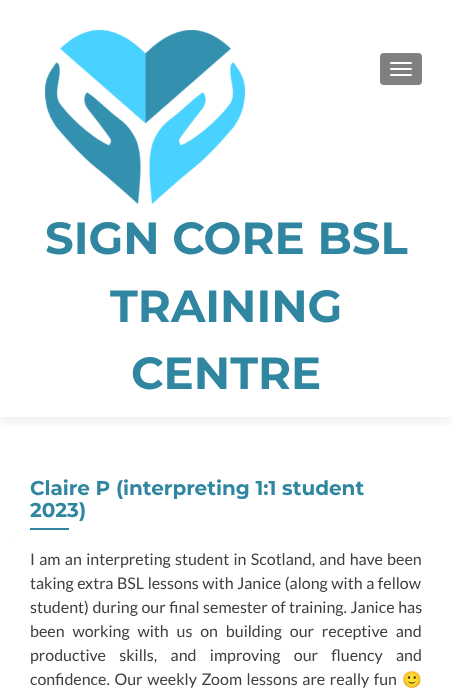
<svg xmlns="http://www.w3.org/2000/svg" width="452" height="690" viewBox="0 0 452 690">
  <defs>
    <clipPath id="clip1"><rect x="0" y="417" width="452" height="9"/></clipPath>
  </defs>
  <rect width="100%" height="100%" fill="rgb(255,255,255)"/>
  <g clip-path="url(#clip1)">
    <rect x="0" y="5" width="452" height="417" fill="rgba(50,50,50,0.08)" filter="blur(5.5px)"/>
  </g>
  <image x="45" y="30" width="200" height="174" href="pic1.png"/>
  <rect x="380" y="53" width="42" height="32" rx="4" fill="rgb(128,128,128)"/>
  <rect x="390" y="62" width="22" height="2" rx="1" fill="rgb(255,255,255)"/>
  <rect x="390" y="68" width="22" height="2" rx="1" fill="rgb(255,255,255)"/>
  <rect x="390" y="74" width="22" height="2" rx="1" fill="rgb(255,255,255)"/>
  <g font-family="Montserrat" font-size="45" font-weight="bold" fill="rgb(48,134,160)">
    <text x="45" y="254">SIGN CORE BSL</text>
    <text x="110" y="322">TRAINING</text>
    <text x="131" y="389">CENTRE</text>
  </g>
  <rect x="15" y="537" width="1" height="1" fill="rgb(242,242,242)"/>
  <g font-family="Montserrat" font-size="20" font-weight="bold" fill="rgb(48,134,160)">
    <text>
      <tspan x="30" y="495">Claire P (interpreting 1:1 student</tspan>
      <tspan x="30" y="517">2023)</tspan>
    </text>
  </g>
  <rect x="30" y="528" width="39" height="2" fill="rgb(48,134,160)"/>
  <g font-family="Lato" font-size="16" fill="rgb(64,64,64)">
    <text>
      <tspan x="30" y="565" word-spacing="1.25">I am an interpreting student in Scotland, and have been</tspan>
      <tspan x="30" y="589" word-spacing="0.5">taking extra BSL lessons with Janice (along with a fellow</tspan>
      <tspan x="30" y="613" word-spacing="0.5">student) during our final semester of training. Janice has</tspan>
      <tspan x="30" y="637" word-spacing="4.75">been working with us on building our receptive and</tspan>
      <tspan x="30" y="661" word-spacing="10.25">productive skills, and improving our fluency and</tspan>
      <tspan x="30" y="685" word-spacing="1.5">confidence. Our weekly Zoom lessons are really fun</tspan>
    </text>
  </g>
  <text x="402" y="685" font-family="Noto Color Emoji" font-size="16" fill="rgb(64,64,64)">🙂</text>
</svg>
